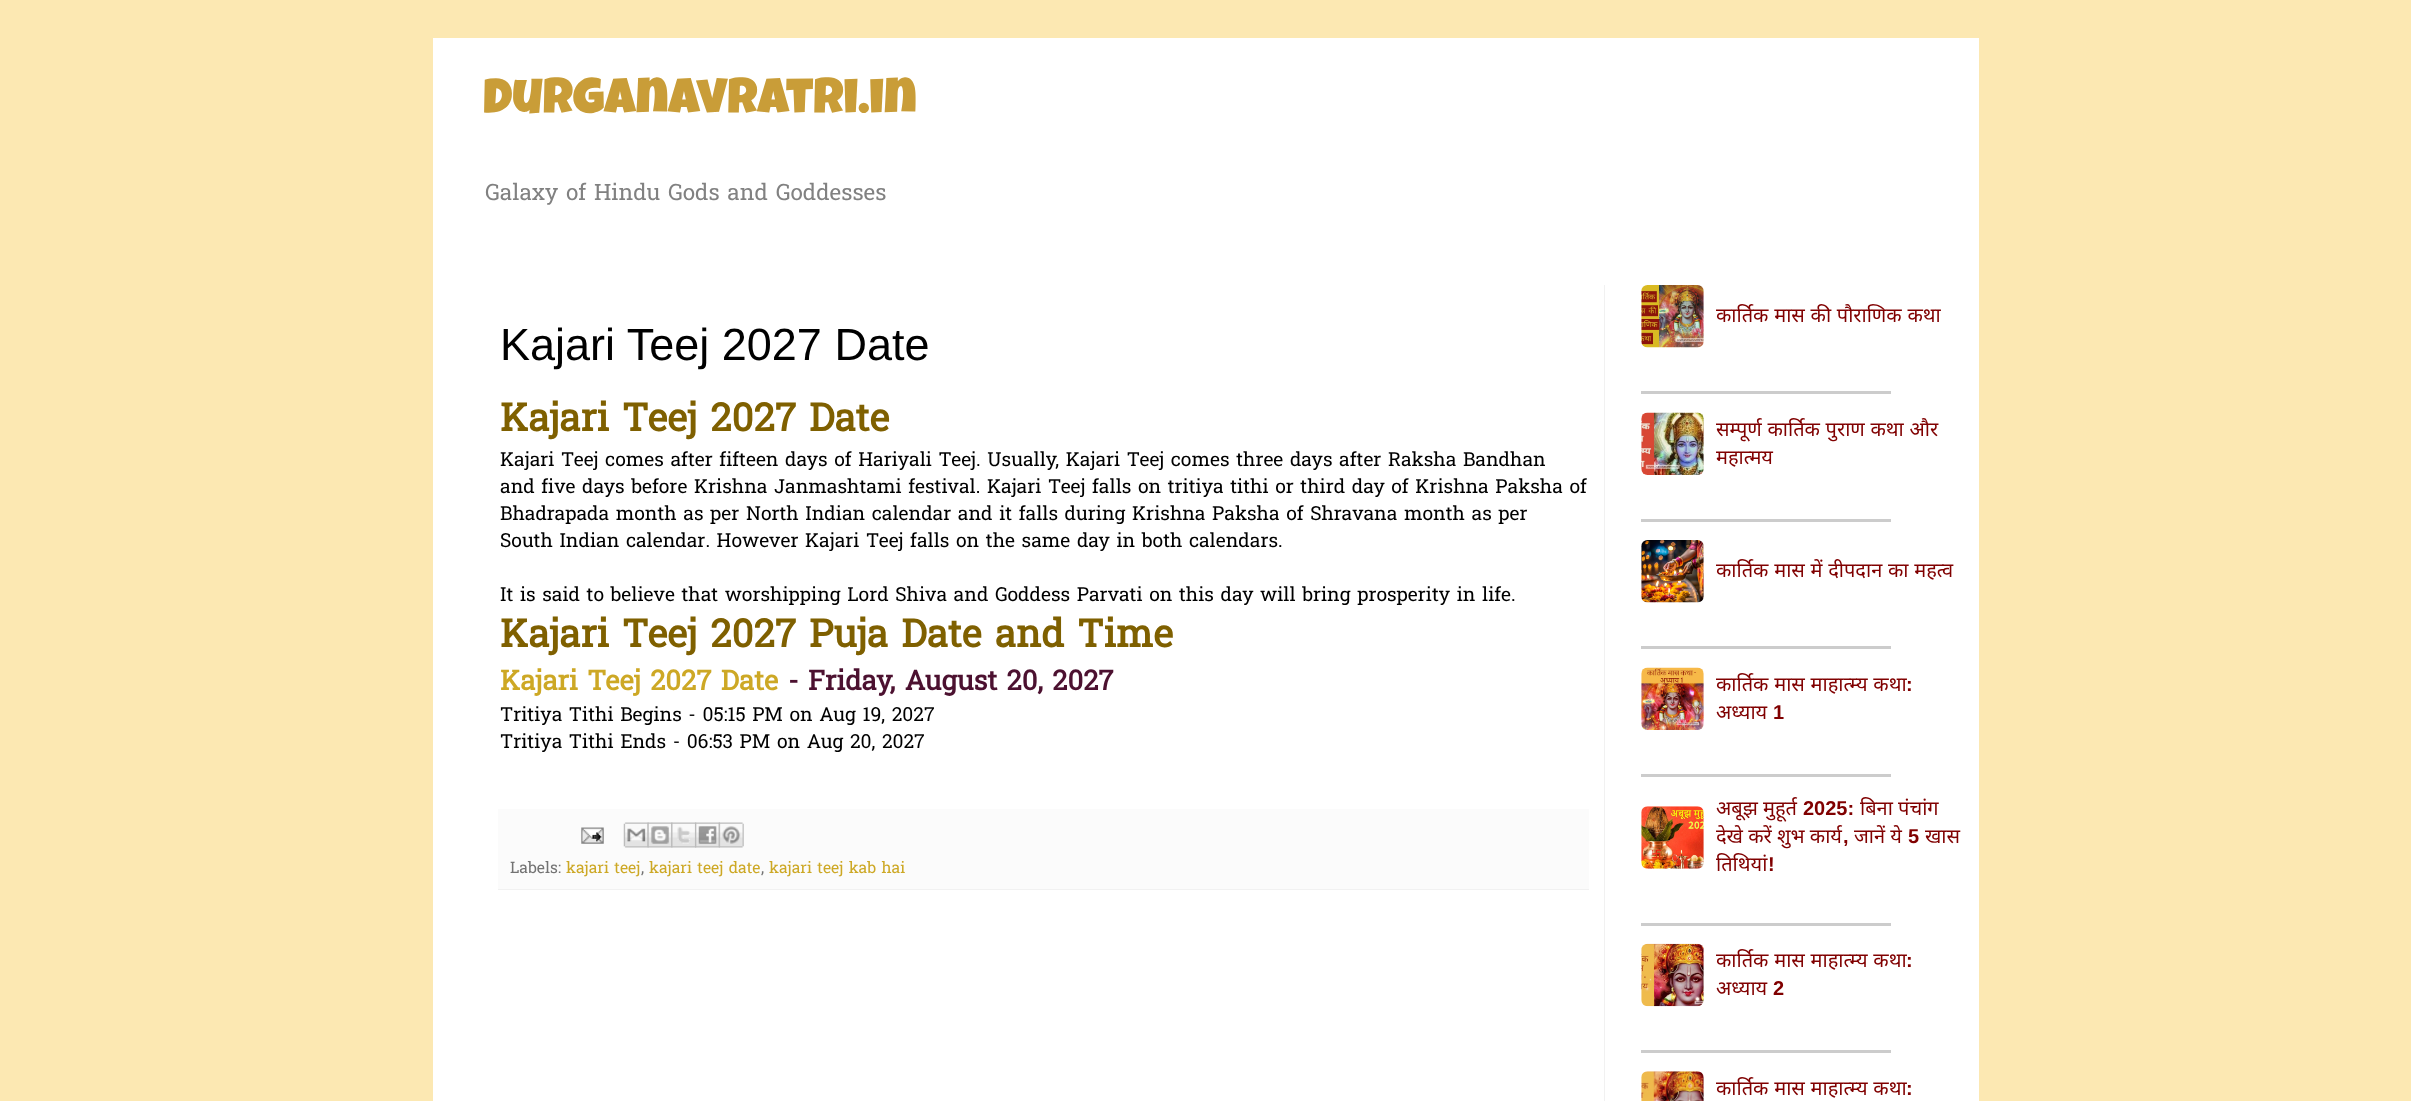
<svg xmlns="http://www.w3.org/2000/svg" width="2411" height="1101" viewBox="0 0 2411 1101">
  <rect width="100%" height="100%" fill="rgb(252,232,178)"/>
  <rect x="433" y="38" width="1546" height="1063" fill="rgb(255,255,255)"/>
  <text x="483" y="113" font-family="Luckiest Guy" font-size="50" fill="rgb(201,157,56)">Durganavratri.in</text>
  <text x="485" y="200" font-family="Hanuman" font-size="22.5" fill="rgb(129,129,129)">Galaxy of Hindu Gods and Goddesses</text>
  <rect x="1604" y="285" width="1" height="816" fill="rgb(241,241,241)"/>
  <text x="500" y="360" font-family="Liberation Sans" font-size="45" fill="rgb(0,0,0)">Kajari Teej 2027 Date</text>
  <text x="500" y="431" font-family="Hanuman" font-size="38.5" font-weight="bold" fill="rgb(127,96,0)">Kajari Teej 2027 Date</text>
  <g font-family="Hanuman" font-size="19.25" fill="rgb(0,0,0)">
    <text>
      <tspan x="500" y="466">Kajari Teej comes after fifteen days of Hariyali Teej. Usually, Kajari Teej comes three days after Raksha Bandhan</tspan>
      <tspan x="500" y="493">and five days before Krishna Janmashtami festival. Kajari Teej falls on tritiya tithi or third day of Krishna Paksha of</tspan>
      <tspan x="500" y="520">Bhadrapada month as per North Indian calendar and it falls during Krishna Paksha of Shravana month as per</tspan>
      <tspan x="500" y="547">South Indian calendar. However Kajari Teej falls on the same day in both calendars.</tspan>
    </text>
    <text x="500" y="601">It is said to believe that worshipping Lord Shiva and Goddess Parvati on this day will bring prosperity in life.</text>
  </g>
  <text x="500" y="647" font-family="Hanuman" font-size="38.5" font-weight="bold" fill="rgb(127,96,0)">Kajari Teej 2027 Puja Date and Time</text>
  <text x="500" y="690" font-family="Hanuman" font-size="27.5" font-weight="bold" fill="rgb(205,168,37)">Kajari Teej 2027 Date</text>
  <text x="788" y="690" font-family="Hanuman" font-size="27.5" font-weight="bold" fill="rgb(76,17,48)">- Friday, August 20, 2027</text>
  <g font-family="Hanuman" font-size="19.25" fill="rgb(0,0,0)">
    <text>
      <tspan x="500" y="721">Tritiya Tithi Begins - 05:15 PM on Aug 19, 2027</tspan>
      <tspan x="500" y="748">Tritiya Tithi Ends - 06:53 PM on Aug 20, 2027</tspan>
    </text>
  </g>
  <rect x="498" y="809" width="1091" height="80" fill="rgb(251,251,251)"/>
  <rect x="498" y="889" width="1091" height="1" fill="rgb(241,241,241)"/>
  <image x="581" y="827" width="23" height="17" href="pic1.png"/>
  <image x="623" y="822" width="26" height="26" href="pic2.png"/>
  <image x="647" y="822" width="26" height="26" href="pic3.png"/>
  <image x="671" y="822" width="26" height="26" href="pic4.png"/>
  <image x="695" y="822" width="25" height="26" href="pic5.png"/>
  <image x="718" y="822" width="26" height="26" href="pic6.png"/>
  <text x="510" y="873" font-family="Hanuman" font-size="15.75" fill="rgb(115,115,115)">Labels:</text>
  <text x="566" y="873" font-family="Hanuman" font-size="15.75" fill="rgb(205,168,37)">kajari teej</text>
  <text x="641" y="873" font-family="Hanuman" font-size="15.75" fill="rgb(115,115,115)">,</text>
  <text x="649" y="873" font-family="Hanuman" font-size="15.75" fill="rgb(205,168,37)">kajari teej date</text>
  <text x="761" y="873" font-family="Hanuman" font-size="15.75" fill="rgb(115,115,115)">,</text>
  <text x="769" y="873" font-family="Hanuman" font-size="15.75" fill="rgb(205,168,37)">kajari teej kab hai</text>
  <image x="1641" y="285" width="63" height="63" href="pic7.png"/>
  <text x="1716" y="322" word-spacing="0.5" font-family="Noto Sans" font-size="20" fill="rgb(128,0,0)">कार्तिक मास की पौराणिक कथा</text>
  <rect x="1641" y="391" width="250" height="3" fill="rgb(204,204,204)"/>
  <image x="1641" y="412" width="63" height="63" href="pic8.png"/>
  <g font-family="Noto Sans" font-size="20" fill="rgb(128,0,0)">
    <text>
      <tspan x="1716" y="436" word-spacing="0.5">सम्पूर्ण कार्तिक पुराण कथा और</tspan>
      <tspan x="1716" y="464">महात्मय</tspan>
    </text>
  </g>
  <rect x="1641" y="519" width="250" height="3" fill="rgb(204,204,204)"/>
  <image x="1641" y="540" width="63" height="63" href="pic9.png"/>
  <text x="1716" y="577" word-spacing="0.5" font-family="Noto Sans" font-size="20" fill="rgb(128,0,0)">कार्तिक मास में दीपदान का महत्व</text>
  <rect x="1641" y="646" width="250" height="3" fill="rgb(204,204,204)"/>
  <image x="1641" y="667" width="63" height="63" href="pic10.png"/>
  <text x="1716" y="691" word-spacing="0.5" font-family="Noto Sans" font-size="20" fill="rgb(128,0,0)">कार्तिक मास माहात्म्य कथा</text>
  <text x="1906" y="691" font-family="Liberation Sans" font-size="20" font-weight="bold" fill="rgb(128,0,0)">:</text>
  <text x="1716" y="719" font-family="Noto Sans" font-size="20" fill="rgb(128,0,0)">अध्याय</text>
  <text x="1773" y="719" font-family="Liberation Sans" font-size="20" font-weight="bold" fill="rgb(128,0,0)">1</text>
  <rect x="1641" y="774" width="250" height="3" fill="rgb(204,204,204)"/>
  <image x="1641" y="806" width="63" height="63" href="pic11.png"/>
  <text x="1716" y="815" font-family="Noto Sans" font-size="20" fill="rgb(128,0,0)">अबूझ मुहूर्त</text>
  <text x="1803" y="815" font-family="Liberation Sans" font-size="20" font-weight="bold" fill="rgb(128,0,0)">2025:</text>
  <g font-family="Noto Sans" font-size="20" fill="rgb(128,0,0)">
    <text x="1860" y="815">बिना पंचांग</text>
    <text x="1716" y="843">देखे करें शुभ कार्य</text>
  </g>
  <text x="1843" y="843" font-family="Liberation Sans" font-size="20" font-weight="bold" fill="rgb(128,0,0)">,</text>
  <text x="1854" y="843" font-family="Noto Sans" font-size="20" fill="rgb(128,0,0)">जानें ये</text>
  <text x="1908" y="843" font-family="Liberation Sans" font-size="20" font-weight="bold" fill="rgb(128,0,0)">5</text>
  <g font-family="Noto Sans" font-size="20" fill="rgb(128,0,0)">
    <text x="1925" y="843">खास</text>
    <text x="1716" y="871">तिथियां</text>
  </g>
  <text x="1768" y="871" font-family="Liberation Sans" font-size="20" font-weight="bold" fill="rgb(128,0,0)">!</text>
  <rect x="1641" y="923" width="250" height="3" fill="rgb(204,204,204)"/>
  <image x="1641" y="943" width="63" height="64" href="pic12.png"/>
  <text x="1716" y="967" word-spacing="0.5" font-family="Noto Sans" font-size="20" fill="rgb(128,0,0)">कार्तिक मास माहात्म्य कथा</text>
  <text x="1906" y="967" font-family="Liberation Sans" font-size="20" font-weight="bold" fill="rgb(128,0,0)">:</text>
  <text x="1716" y="995" font-family="Noto Sans" font-size="20" fill="rgb(128,0,0)">अध्याय</text>
  <text x="1773" y="995" font-family="Liberation Sans" font-size="20" font-weight="bold" fill="rgb(128,0,0)">2</text>
  <rect x="1641" y="1050" width="250" height="3" fill="rgb(204,204,204)"/>
  <image x="1641" y="1071" width="63" height="30" href="pic13.png"/>
  <text x="1716" y="1095" word-spacing="0.5" font-family="Noto Sans" font-size="20" fill="rgb(128,0,0)">कार्तिक मास माहात्म्य कथा</text>
  <text x="1906" y="1095" font-family="Liberation Sans" font-size="20" font-weight="bold" fill="rgb(128,0,0)">:</text>
</svg>
